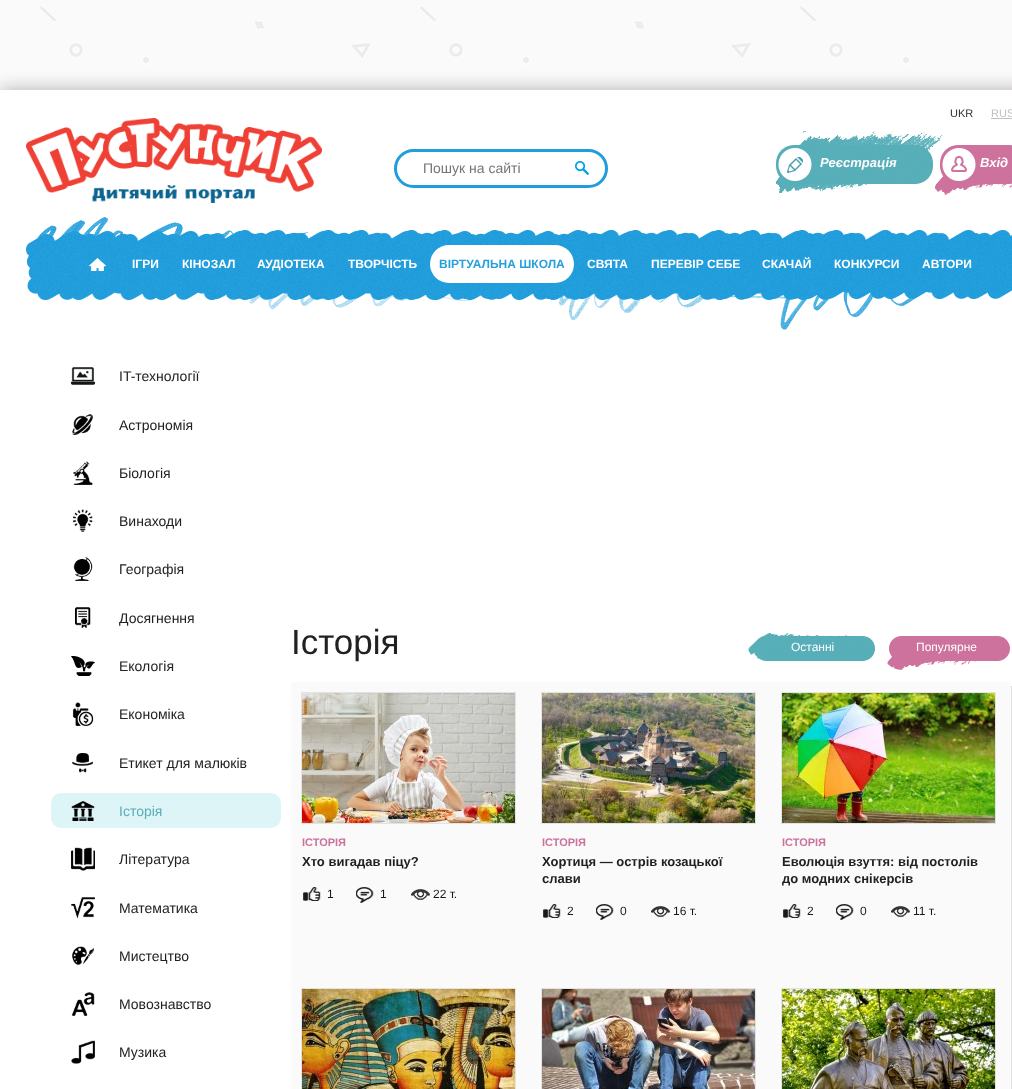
<svg xmlns="http://www.w3.org/2000/svg" width="1012" height="1089" viewBox="0 0 1012 1089">
  <rect width="100%" height="100%" fill="rgb(255,255,255)"/>
  <image x="0" y="0" width="1012" height="90" href="pic1.png"/>
  <rect x="0" y="90" width="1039" height="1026" fill="rgb(177,170,170)" filter="blur(9px)"/>
  <rect x="0" y="90" width="1012" height="999" fill="rgb(255,255,255)"/>
  <image x="26" y="118" width="296" height="85" href="pic2.png"/>
  <rect x="395.5" y="150.5" width="211" height="36" rx="18" fill="none" stroke="rgb(33,157,219)" stroke-width="3"/>
  <text x="423" y="173" font-family="Liberation Sans" font-size="14" fill="rgb(117,117,117)">Пошук на сайті</text>
  <image x="575" y="161" width="14" height="14" href="pic3.png"/>
  <text x="950" y="117" font-family="Liberation Sans" font-size="11" fill="rgb(48,44,45)">UKR</text>
  <text x="991" y="117" font-family="Liberation Sans" font-size="11" fill="rgb(191,191,191)">RUS</text>
  <rect x="991" y="118" width="21" height="1" fill="rgb(191,191,191)"/>
  <image x="776" y="131" width="167" height="62" href="pic4.png"/>
  <text x="820" y="167" font-family="Liberation Sans" font-size="13" font-weight="bold" font-style="italic" fill="rgb(255,255,255)">Реєстрація</text>
  <image x="935" y="145" width="77" height="50" href="pic5.png"/>
  <text x="980" y="167" font-family="Liberation Sans" font-size="13" font-weight="bold" font-style="italic" fill="rgb(255,255,255)">Вхід</text>
  <image x="26" y="217" width="986" height="113" href="pic6.png"/>
  <image x="89" y="258" width="17" height="13" href="pic7.png"/>
  <g font-family="Liberation Sans" font-size="12" font-weight="bold" fill="rgb(255,255,255)">
    <text x="132" y="268">ІГРИ</text>
    <text x="182" y="268">КІНОЗАЛ</text>
    <text x="257" y="268">АУДІОТЕКА</text>
    <text x="348" y="268">ТВОРЧІСТЬ</text>
  </g>
  <rect x="430" y="245" width="144" height="38" rx="19" fill="rgb(255,255,255)"/>
  <text x="439" y="268" font-family="Liberation Sans" font-size="12" font-weight="bold" fill="rgb(39,160,220)">ВІРТУАЛЬНА ШКОЛА</text>
  <g font-family="Liberation Sans" font-size="12" font-weight="bold" fill="rgb(255,255,255)">
    <text x="587" y="268">СВЯТА</text>
    <text x="651" y="268">ПЕРЕВІР СЕБЕ</text>
    <text x="762" y="268">СКАЧАЙ</text>
    <text x="834" y="268">КОНКУРСИ</text>
    <text x="922" y="268">АВТОРИ</text>
  </g>
  <image x="71" y="367" width="24" height="18" href="pic8.png"/>
  <text x="119" y="381" font-family="Liberation Sans" font-size="14" fill="rgb(35,32,32)">IT-технології</text>
  <image x="72" y="414" width="21" height="21" href="pic9.png"/>
  <text x="119" y="430" font-family="Liberation Sans" font-size="14" fill="rgb(35,32,32)">Астрономія</text>
  <image x="73" y="461" width="20" height="24" href="pic10.png"/>
  <text x="119" y="478" font-family="Liberation Sans" font-size="14" fill="rgb(35,32,32)">Біологія</text>
  <image x="73" y="509" width="20" height="23" href="pic11.png"/>
  <text x="119" y="526" font-family="Liberation Sans" font-size="14" fill="rgb(35,32,32)">Винаходи</text>
  <image x="73" y="557" width="20" height="24" href="pic12.png"/>
  <text x="119" y="574" font-family="Liberation Sans" font-size="14" fill="rgb(35,32,32)">Географія</text>
  <image x="75" y="607" width="16" height="21" href="pic13.png"/>
  <text x="119" y="623" font-family="Liberation Sans" font-size="14" fill="rgb(35,32,32)">Досягнення</text>
  <image x="71" y="656" width="24" height="20" href="pic14.png"/>
  <text x="119" y="671" font-family="Liberation Sans" font-size="14" fill="rgb(35,32,32)">Екологія</text>
  <image x="72" y="702" width="22" height="24" href="pic15.png"/>
  <text x="119" y="719" font-family="Liberation Sans" font-size="14" fill="rgb(35,32,32)">Економіка</text>
  <image x="72" y="753" width="21" height="20" href="pic16.png"/>
  <text x="119" y="768" font-family="Liberation Sans" font-size="14" fill="rgb(35,32,32)">Етикет для малюків</text>
  <rect x="51" y="793" width="230" height="35" rx="10" fill="rgb(222,245,248)"/>
  <image x="71" y="801" width="24" height="20" href="pic17.png"/>
  <text x="119" y="816" font-family="Liberation Sans" font-size="14" fill="rgb(87,174,184)">Історія</text>
  <image x="71" y="847" width="24" height="24" href="pic18.png"/>
  <text x="119" y="864" font-family="Liberation Sans" font-size="14" fill="rgb(35,32,32)">Література</text>
  <image x="71" y="897" width="24" height="22" href="pic19.png"/>
  <text x="119" y="913" font-family="Liberation Sans" font-size="14" fill="rgb(35,32,32)">Математика</text>
  <image x="72" y="946" width="22" height="19" href="pic20.png"/>
  <text x="119" y="961" font-family="Liberation Sans" font-size="14" fill="rgb(35,32,32)">Мистецтво</text>
  <image x="71" y="992" width="24" height="24" href="pic21.png"/>
  <text x="119" y="1009" font-family="Liberation Sans" font-size="14" fill="rgb(35,32,32)">Мовознавство</text>
  <image x="71" y="1040" width="24" height="24" href="pic22.png"/>
  <text x="119" y="1057" font-family="Liberation Sans" font-size="14" fill="rgb(35,32,32)">Музика</text>
  <text x="291" y="654" font-family="Liberation Sans" font-size="35" fill="rgb(35,32,32)">Історія</text>
  <image x="748" y="633" width="127" height="28" href="pic23.png"/>
  <text x="791" y="651" font-family="Liberation Sans" font-size="12" fill="rgb(255,255,255)">Останні</text>
  <image x="887" y="636" width="123" height="34" href="pic24.png"/>
  <text x="916" y="651" font-family="Liberation Sans" font-size="12" fill="rgb(255,255,255)">Популярне</text>
  <path d="M295 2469C295 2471 297 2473 299 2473H1011C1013 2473 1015 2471 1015 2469V690C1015 688 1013 686 1011 686V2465C1011 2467 1009 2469 1007 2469Z" fill="rgb(224,224,224)"/>
  <rect x="291" y="682" width="720" height="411" rx="4" fill="rgb(250,250,250)"/>
  <rect x="301.5" y="692.5" width="214" height="131" fill="none" stroke="rgb(227,227,227)"/>
  <image x="302" y="693" width="213" height="130" href="pic25.png"/>
  <text x="302" y="846" font-family="Liberation Sans" font-size="11" font-weight="bold" fill="rgb(205,113,157)">ІСТОРІЯ</text>
  <text x="302" y="866" font-family="Liberation Sans" font-size="13" font-weight="bold" fill="rgb(35,32,32)">Хто вигадав піцу?</text>
  <image x="303" y="887" width="18" height="14" href="pic26.png"/>
  <text x="327" y="898" font-family="Liberation Sans" font-size="12" fill="rgb(25,25,25)">1</text>
  <image x="356" y="887" width="18" height="16" href="pic27.png"/>
  <text x="380" y="898" font-family="Liberation Sans" font-size="12" fill="rgb(25,25,25)">1</text>
  <image x="411" y="889" width="19" height="11" href="pic28.png"/>
  <text x="433" y="898" font-family="Liberation Sans" font-size="12" fill="rgb(25,25,25)">22 т.</text>
  <rect x="541.5" y="692.5" width="214" height="131" fill="none" stroke="rgb(227,227,227)"/>
  <image x="542" y="693" width="213" height="130" href="pic29.png"/>
  <text x="542" y="846" font-family="Liberation Sans" font-size="11" font-weight="bold" fill="rgb(205,113,157)">ІСТОРІЯ</text>
  <g font-family="Liberation Sans" font-size="13" font-weight="bold" fill="rgb(35,32,32)">
    <text>
      <tspan x="542" y="866">Хортиця — острів козацької</tspan>
      <tspan x="542" y="883">слави</tspan>
    </text>
  </g>
  <image x="543" y="904" width="18" height="14" href="pic26.png"/>
  <text x="567" y="915" font-family="Liberation Sans" font-size="12" fill="rgb(25,25,25)">2</text>
  <image x="596" y="904" width="18" height="16" href="pic27.png"/>
  <text x="620" y="915" font-family="Liberation Sans" font-size="12" fill="rgb(25,25,25)">0</text>
  <image x="651" y="906" width="19" height="11" href="pic28.png"/>
  <text x="673" y="915" font-family="Liberation Sans" font-size="12" fill="rgb(25,25,25)">16 т.</text>
  <rect x="781.5" y="692.5" width="214" height="131" fill="none" stroke="rgb(227,227,227)"/>
  <image x="782" y="693" width="213" height="130" href="pic30.png"/>
  <text x="782" y="846" font-family="Liberation Sans" font-size="11" font-weight="bold" fill="rgb(205,113,157)">ІСТОРІЯ</text>
  <g font-family="Liberation Sans" font-size="13" font-weight="bold" fill="rgb(35,32,32)">
    <text>
      <tspan x="782" y="866">Еволюція взуття: від постолів</tspan>
      <tspan x="782" y="883">до модних снікерсів</tspan>
    </text>
  </g>
  <image x="783" y="904" width="18" height="14" href="pic26.png"/>
  <text x="807" y="915" font-family="Liberation Sans" font-size="12" fill="rgb(25,25,25)">2</text>
  <image x="836" y="904" width="18" height="16" href="pic27.png"/>
  <text x="860" y="915" font-family="Liberation Sans" font-size="12" fill="rgb(25,25,25)">0</text>
  <image x="891" y="906" width="19" height="11" href="pic31.png"/>
  <text x="913" y="915" font-family="Liberation Sans" font-size="12" fill="rgb(25,25,25)">11 т.</text>
  <rect x="301.5" y="988.5" width="214" height="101" fill="none" stroke="rgb(227,227,227)"/>
  <image x="302" y="989" width="213" height="100" href="pic32.png"/>
  <rect x="541.5" y="988.5" width="214" height="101" fill="none" stroke="rgb(227,227,227)"/>
  <image x="542" y="989" width="213" height="100" href="pic33.png"/>
  <rect x="781.5" y="988.5" width="214" height="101" fill="none" stroke="rgb(227,227,227)"/>
  <image x="782" y="989" width="213" height="100" href="pic34.png"/>
</svg>
